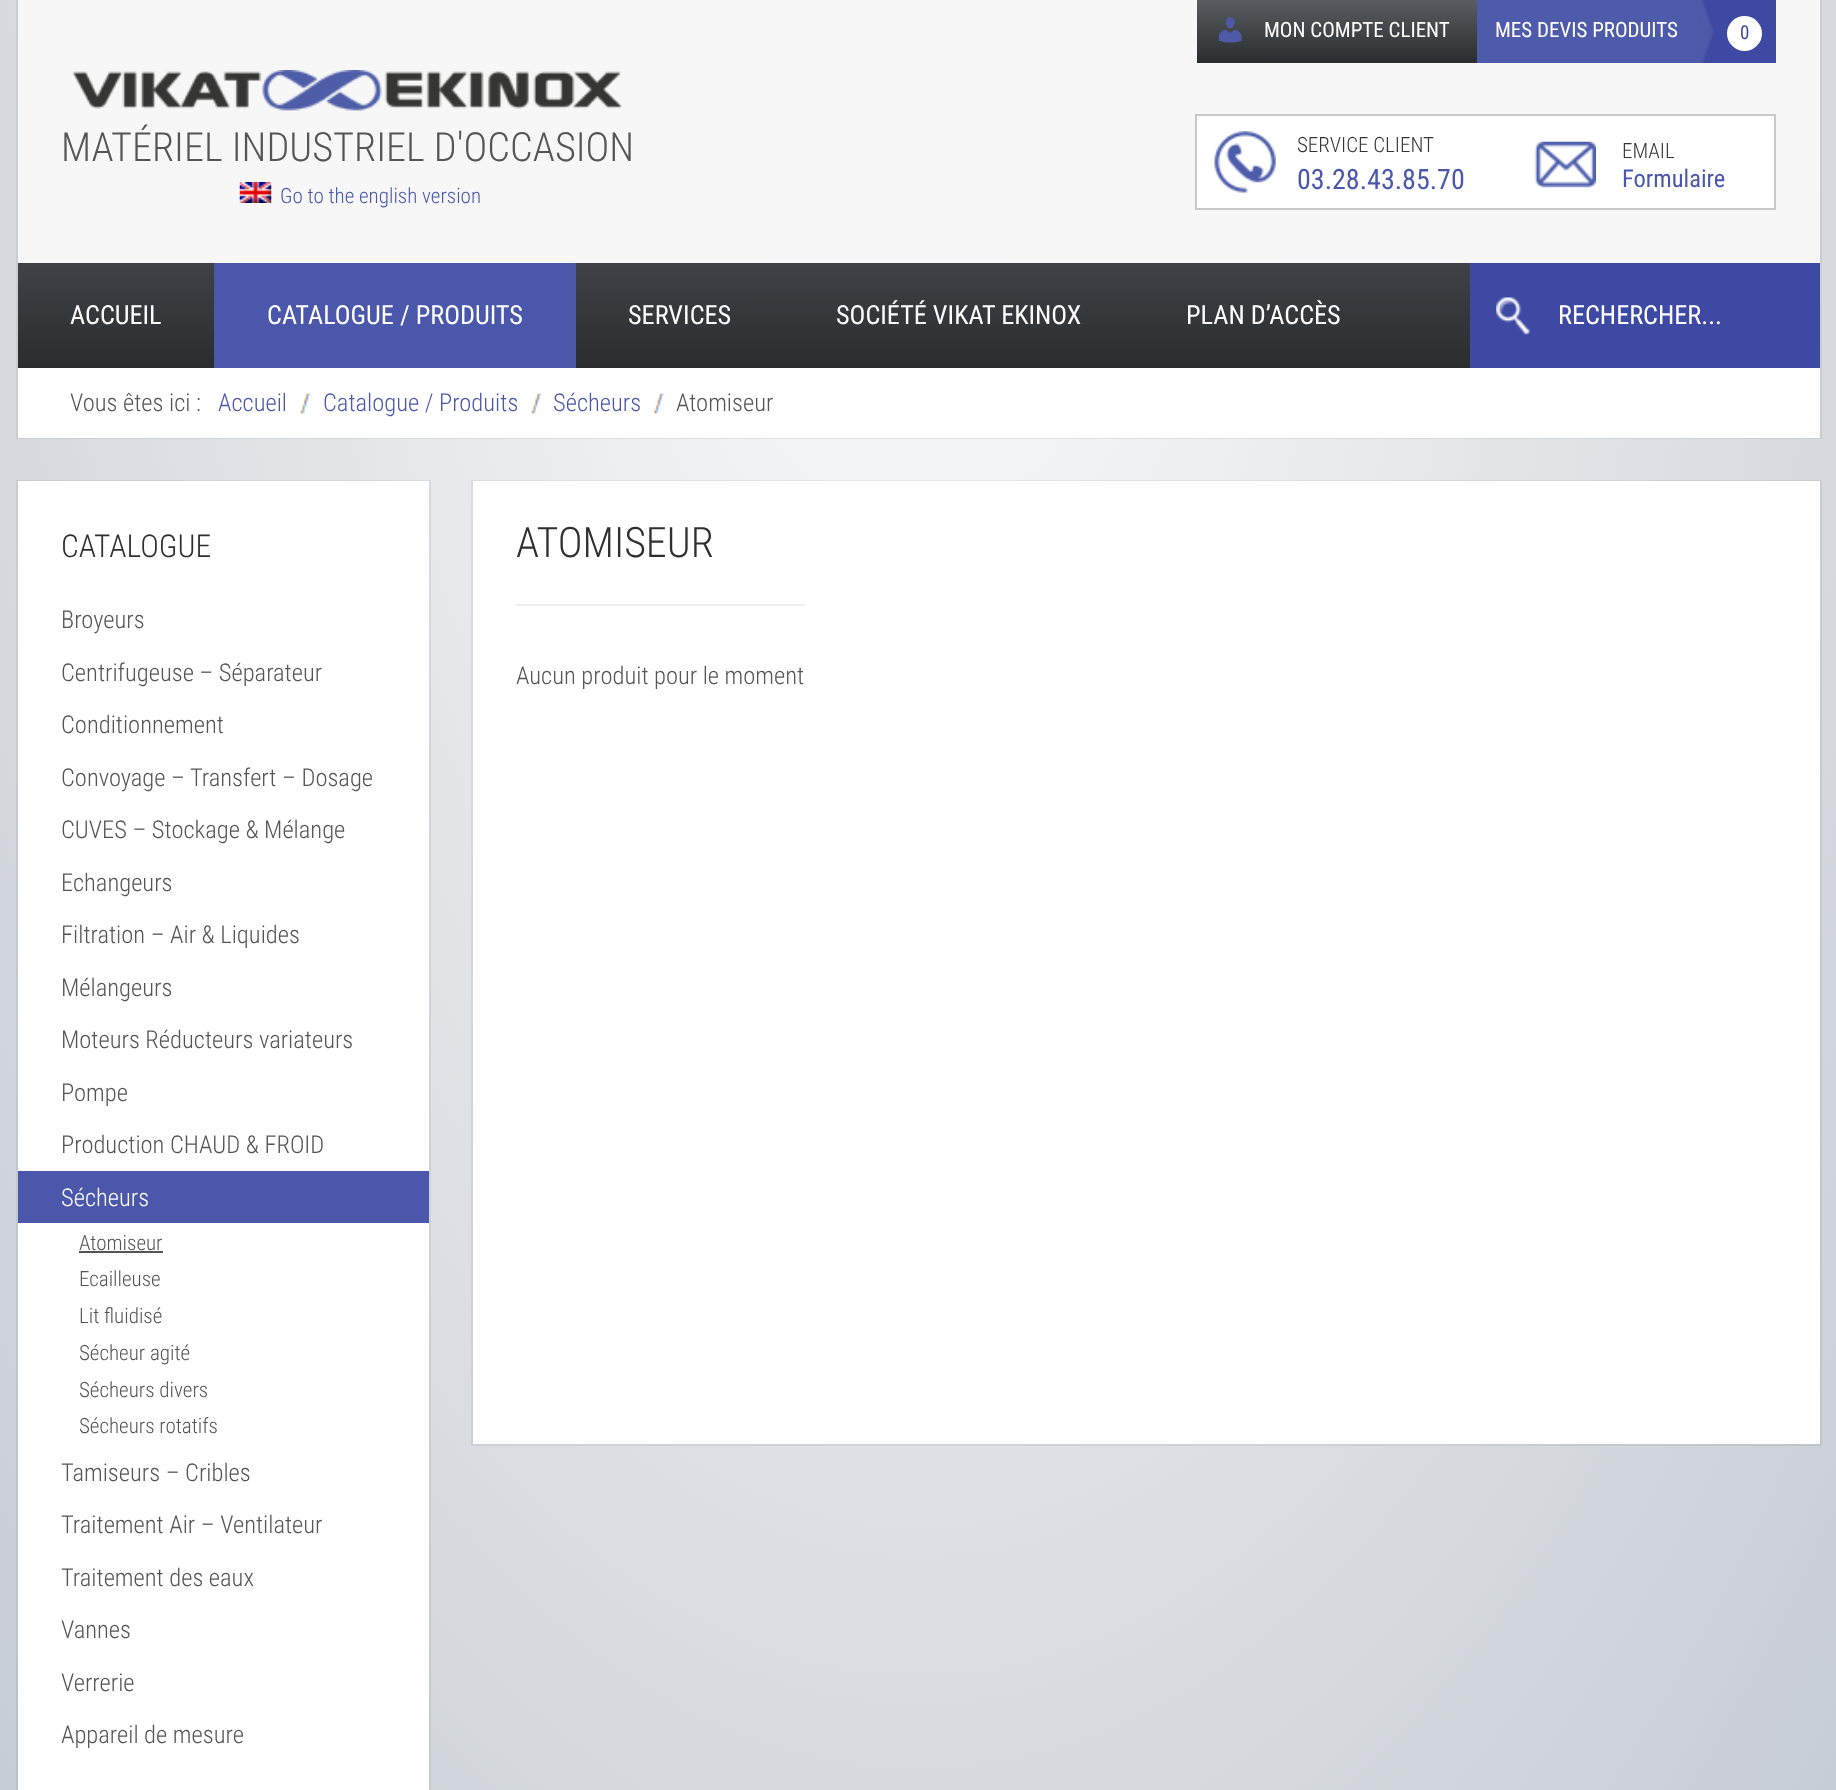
<svg xmlns="http://www.w3.org/2000/svg" width="1836" height="1790" viewBox="0 0 1836 1790">
  <defs>
    <radialGradient id="g1" gradientUnits="userSpaceOnUse" cx="0" cy="0" r="1" gradientTransform="matrix(1299 0 0 2532 919 0)"><stop offset="0.2" stop-color="rgb(242,243,244)"/><stop offset="1" stop-color="rgb(199,205,212)"/></radialGradient>
    <linearGradient id="g2" gradientUnits="userSpaceOnUse" x1="1337" y1="0" x2="1337" y2="63"><stop offset="0" stop-color="rgb(89,92,96)"/><stop offset="1" stop-color="rgb(42,45,48)"/></linearGradient>
    <linearGradient id="g3" gradientUnits="userSpaceOnUse" x1="919" y1="262" x2="919" y2="368"><stop offset="0" stop-color="rgb(63,66,70)"/><stop offset="1" stop-color="rgb(42,45,48)"/></linearGradient>
  </defs>
  <rect width="100%" height="100%" fill="rgb(255,255,255)"/>
  <rect x="0" y="0" width="1836" height="1790" fill="url(#g1)"/>
  <rect x="17" y="-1" width="1804" height="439" fill="none" stroke="rgba(0,0,0,0.06)" stroke-width="2"/>
  <rect x="18" y="0" width="1802" height="263" fill="rgb(247,247,247)"/>
  <image x="73" y="70" width="549" height="41" href="pic1.png"/>
  <text x="61" y="161" font-family="Roboto Condensed" font-size="40.25" font-weight="300" fill="rgb(85,85,85)">MATÉRIEL INDUSTRIEL D'OCCASION</text>
  <rect x="1197" y="0" width="280" height="63" fill="url(#g2)"/>
  <image x="1218" y="17" width="24" height="26" href="pic2.png"/>
  <text x="1264" y="37" font-family="Roboto Condensed" font-size="21" fill="rgb(255,255,255)">MON COMPTE CLIENT</text>
  <rect x="1477" y="0" width="219" height="63" fill="rgb(78,91,170)"/>
  <text x="1495" y="37" font-family="Roboto Condensed" font-size="21" fill="rgb(255,255,255)">MES DEVIS PRODUITS</text>
  <rect x="1714" y="0" width="62" height="63" fill="rgb(62,73,163)"/>
  <image x="1696" y="0" width="18" height="63" href="pic3.png"/>
  <circle cx="1744.5" cy="33.5" r="17.5" fill="rgb(255,255,255)"/>
  <text x="1740" y="39" font-family="Roboto Condensed" font-size="19" fill="rgb(63,72,163)">0</text>
  <rect x="1196" y="115" width="579" height="94" fill="rgb(255,255,255)" stroke="rgb(200,201,202)" stroke-width="2"/>
  <image x="1214" y="131" width="62" height="62" href="pic4.png"/>
  <text x="1297" y="152" font-family="Roboto Condensed" font-size="21" font-weight="300" fill="rgb(53,53,52)">SERVICE CLIENT</text>
  <text x="1297" y="189" font-family="Roboto Condensed" font-size="28" fill="rgb(75,87,171)">03.28.43.85.70</text>
  <image x="1534" y="141" width="62" height="47" href="pic5.png"/>
  <text x="1622" y="158" font-family="Roboto Condensed" font-size="21" font-weight="300" fill="rgb(53,53,52)">EMAIL</text>
  <text x="1622" y="187" font-family="Roboto Condensed" font-size="24.5" fill="rgb(75,87,171)">Formulaire</text>
  <image x="239" y="182" width="33" height="21" href="pic6.png"/>
  <text x="280" y="203" font-family="Roboto Condensed" font-size="21" font-weight="300" fill="rgb(75,87,171)">Go to the english version</text>
  <rect x="18" y="263" width="1452" height="105" fill="url(#g3)"/>
  <text x="70" y="324" font-family="Roboto Condensed" font-size="26.25" fill="rgb(255,255,255)">ACCUEIL</text>
  <rect x="214" y="263" width="362" height="105" fill="rgb(75,87,171)"/>
  <g font-family="Roboto Condensed" font-size="26.25" fill="rgb(255,255,255)">
    <text x="267" y="324">CATALOGUE / PRODUITS</text>
    <text x="628" y="324">SERVICES</text>
    <text x="836" y="324">SOCIÉTÉ VIKAT EKINOX</text>
    <text x="1186" y="324">PLAN D’ACCÈS</text>
  </g>
  <rect x="1470" y="263" width="350" height="105" fill="rgb(62,73,163)"/>
  <image x="1496" y="297" width="34" height="38" href="pic7.png"/>
  <text x="1558" y="324" font-family="Roboto Condensed" font-size="26.25" fill="rgb(255,255,255)">RECHERCHER...</text>
  <rect x="18" y="368" width="1802" height="70" fill="rgb(255,255,255)"/>
  <text x="70" y="411" font-family="Roboto Condensed" font-size="24.5" font-weight="300" fill="rgb(85,85,85)">Vous êtes ici :</text>
  <image x="299" y="393" width="12" height="21" href="pic8.png"/>
  <text x="218" y="411" font-family="Roboto Condensed" font-size="24.5" font-weight="300" fill="rgb(75,87,171)">Accueil</text>
  <image x="530" y="393" width="12" height="21" href="pic8.png"/>
  <text x="323" y="411" font-family="Roboto Condensed" font-size="24.5" font-weight="300" fill="rgb(75,87,171)">Catalogue / Produits</text>
  <image x="652" y="393" width="12" height="21" href="pic9.png"/>
  <text x="553" y="411" font-family="Roboto Condensed" font-size="24.5" font-weight="300" fill="rgb(75,87,171)">Sécheurs</text>
  <text x="676" y="411" font-family="Roboto Condensed" font-size="24.5" font-weight="300" fill="rgb(85,85,85)">Atomiseur</text>
  <rect x="17" y="481" width="413" height="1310" fill="none" stroke="rgba(0,0,0,0.06)" stroke-width="2"/>
  <rect x="18" y="481" width="411" height="1309" fill="rgb(255,255,255)"/>
  <text x="61" y="557" font-family="Roboto Condensed" font-size="31.5" font-weight="300" fill="rgb(47,47,47)">CATALOGUE</text>
  <g font-family="Roboto Condensed" font-size="24.5" font-weight="300" fill="rgb(85,85,85)">
    <text x="61" y="628">Broyeurs</text>
    <text x="61" y="681">Centrifugeuse – Séparateur</text>
    <text x="61" y="733">Conditionnement</text>
    <text x="61" y="786">Convoyage – Transfert – Dosage</text>
    <text x="61" y="838">CUVES – Stockage &amp; Mélange</text>
    <text x="61" y="891">Echangeurs</text>
    <text x="61" y="943">Filtration – Air &amp; Liquides</text>
    <text x="61" y="996">Mélangeurs</text>
    <text x="61" y="1048">Moteurs Réducteurs variateurs</text>
    <text x="61" y="1101">Pompe</text>
    <text x="61" y="1153">Production CHAUD &amp; FROID</text>
  </g>
  <rect x="18" y="1171" width="411" height="52" fill="rgb(75,87,171)"/>
  <text x="61" y="1206" font-family="Roboto Condensed" font-size="24.5" font-weight="300" fill="rgb(255,255,255)">Sécheurs</text>
  <text x="79" y="1250" font-family="Roboto Condensed" font-size="21" font-weight="300" fill="rgb(85,85,85)">Atomiseur</text>
  <rect x="79" y="1251" width="84" height="2" fill="rgb(85,85,85)"/>
  <g font-family="Roboto Condensed" font-size="21" font-weight="300" fill="rgb(85,85,85)">
    <text>
      <tspan x="79" y="1286">Ecailleuse</tspan>
      <tspan x="79" y="1323">Lit fluidisé</tspan>
      <tspan x="79" y="1360">Sécheur agité</tspan>
      <tspan x="79" y="1397">Sécheurs divers</tspan>
      <tspan x="79" y="1433">Sécheurs rotatifs</tspan>
    </text>
  </g>
  <g font-family="Roboto Condensed" font-size="24.5" font-weight="300" fill="rgb(85,85,85)">
    <text x="61" y="1481">Tamiseurs – Cribles</text>
    <text x="61" y="1533">Traitement Air – Ventilateur</text>
    <text x="61" y="1586">Traitement des eaux</text>
    <text x="61" y="1638">Vannes</text>
    <text x="61" y="1691">Verrerie</text>
    <text x="61" y="1743">Appareil de mesure</text>
  </g>
  <rect x="472" y="481" width="1349" height="964" fill="none" stroke="rgba(0,0,0,0.06)" stroke-width="2"/>
  <rect x="473" y="481" width="1347" height="963" fill="rgb(255,255,255)"/>
  <rect x="516" y="604" width="289" height="2" fill="rgb(237,237,237)"/>
  <text x="516" y="557" font-family="Roboto Condensed" font-size="42" font-weight="300" fill="rgb(47,47,47)">ATOMISEUR</text>
  <text x="516" y="684" font-family="Roboto Condensed" font-size="24.5" font-weight="300" fill="rgb(85,85,85)">Aucun produit pour le moment</text>
</svg>
